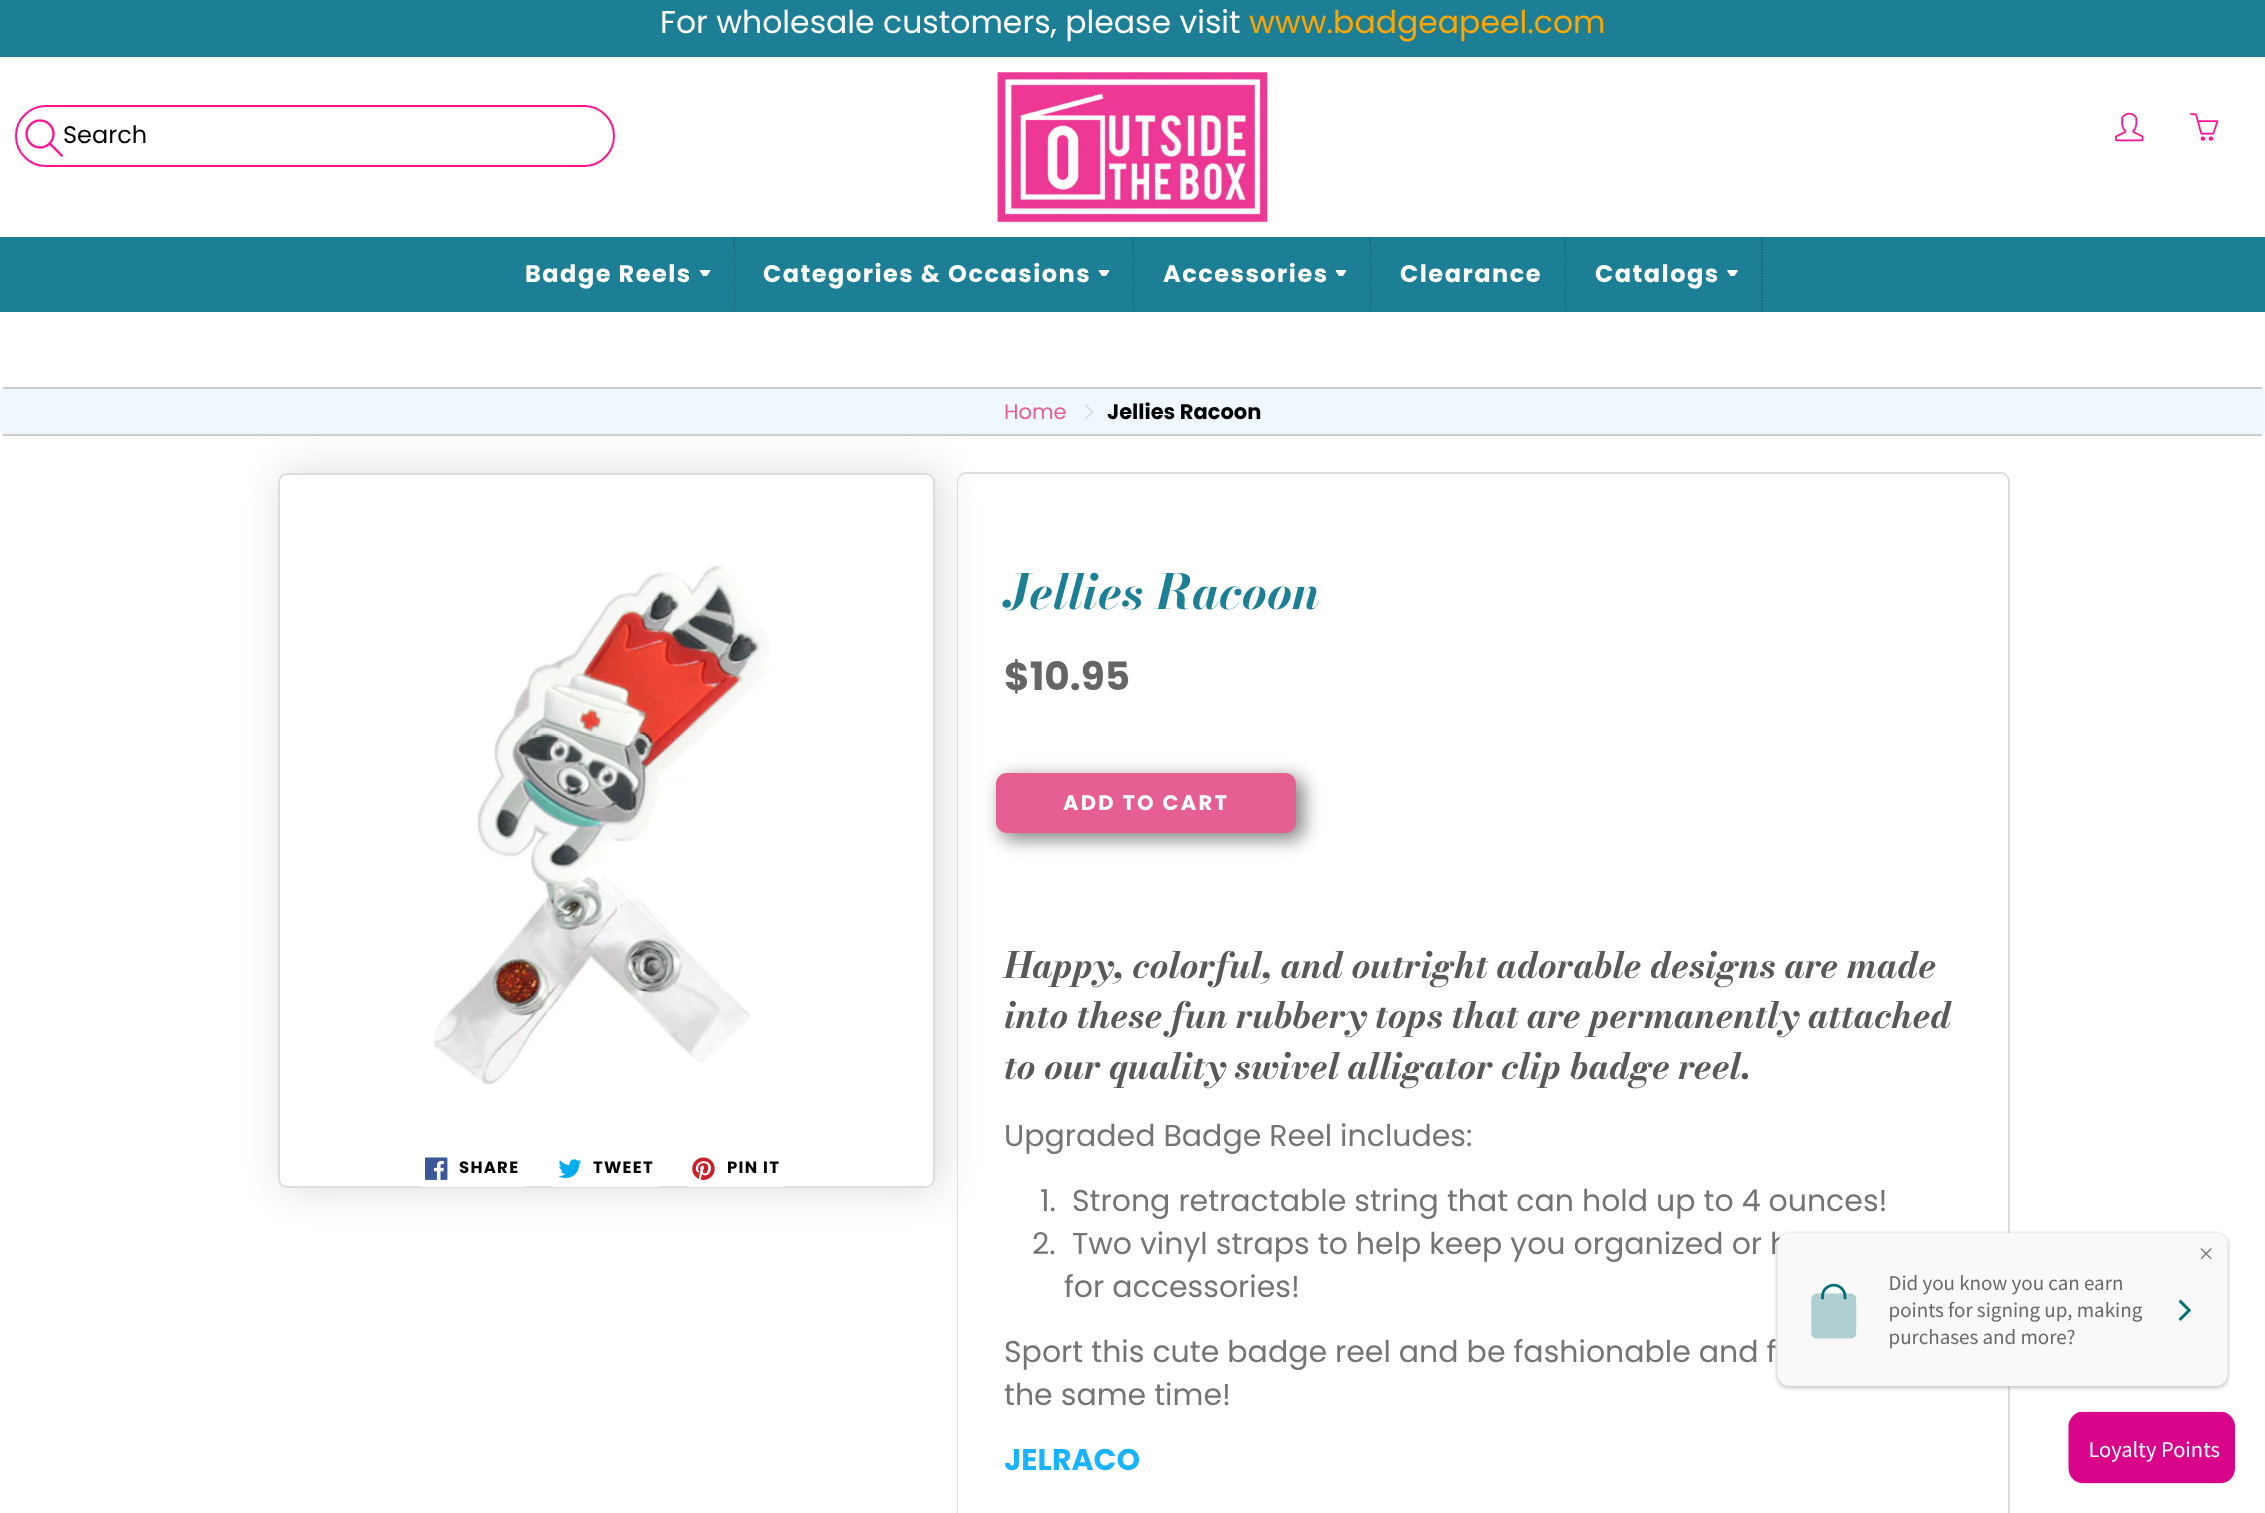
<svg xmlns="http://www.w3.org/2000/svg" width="2265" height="1513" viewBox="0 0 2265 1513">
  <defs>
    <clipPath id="clip1"><path d="M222 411H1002V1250H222ZM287 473H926C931 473 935 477 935 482V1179C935 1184 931 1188 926 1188H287C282 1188 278 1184 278 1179V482C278 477 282 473 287 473Z" clip-rule="evenodd"/></clipPath>
  </defs>
  <rect width="100%" height="100%" fill="rgb(255,255,255)"/>
  <rect x="0" y="0" width="2265" height="57" fill="rgb(28,127,149)"/>
  <text x="660" y="33" font-family="Poppins" font-size="31.5" fill="rgb(255,255,255)">For wholesale customers, please visit</text>
  <text x="1249" y="33" font-family="Poppins" font-size="31.5" fill="rgb(255,165,0)">www.badgeapeel.com</text>
  <rect x="16" y="106" width="598" height="60" rx="30" fill="none" stroke="rgb(255,20,147)" stroke-width="2"/>
  <image x="25" y="119" width="38" height="38" href="pic1.png"/>
  <text x="63" y="143" font-family="Poppins" font-size="24" fill="rgb(0,0,0)">Search</text>
  <image x="997" y="72" width="271" height="150" href="pic2.png"/>
  <image x="2115" y="112" width="29" height="30" href="pic3.png"/>
  <image x="2190" y="113" width="29" height="28" href="pic4.png"/>
  <rect x="0" y="237" width="2265" height="75" fill="rgb(28,127,149)"/>
  <path d="M734 237V312" fill="none" stroke="rgb(20,90,106)" stroke-width="1.5" stroke-dasharray="1.5 1.5"/>
  <path d="M512 237H725C730 237 734 241 734 246V312H503V246C503 241 507 237 512 237Z" fill="rgb(28,127,149)"/>
  <text x="525" y="282" font-family="Poppins" font-size="24" font-weight="bold" letter-spacing="1.5" fill="rgb(255,255,255)">Badge Reels</text>
  <path d="M700.5 270L699.5 270.5L703 276H707L710.5 270.5C710 270 709.5 270 708 270Z" fill="rgb(255,255,255)"/>
  <path d="M1133 237V312" fill="none" stroke="rgb(20,90,106)" stroke-width="1.5" stroke-dasharray="1.5 1.5"/>
  <path d="M750 237H1124C1129 237 1133 241 1133 246V312H741V246C741 241 745 237 750 237Z" fill="rgb(28,127,149)"/>
  <text x="763" y="282" font-family="Poppins" font-size="24" font-weight="bold" letter-spacing="1.5" fill="rgb(255,255,255)">Categories &amp; Occasions</text>
  <path d="M1099.5 270L1098.5 270.5L1102 276H1106L1109.5 270.5C1109 270 1108.5 270 1107 270Z" fill="rgb(255,255,255)"/>
  <path d="M1370 237V312" fill="none" stroke="rgb(20,90,106)" stroke-width="1.5" stroke-dasharray="1.5 1.5"/>
  <path d="M1149 237H1361C1366 237 1370 241 1370 246V312H1140V246C1140 241 1144 237 1149 237Z" fill="rgb(28,127,149)"/>
  <text x="1163" y="282" font-family="Poppins" font-size="24" font-weight="bold" letter-spacing="1.5" fill="rgb(255,255,255)">Accessories</text>
  <path d="M1336.5 270L1335.5 270.5L1339 276H1343L1346.5 270.5C1346 270 1345.5 270 1344 270Z" fill="rgb(255,255,255)"/>
  <path d="M1565 237V312" fill="none" stroke="rgb(20,90,106)" stroke-width="1.5" stroke-dasharray="1.5 1.5"/>
  <path d="M1386 237H1556C1561 237 1565 241 1565 246V312H1377V246C1377 241 1381 237 1386 237Z" fill="rgb(28,127,149)"/>
  <text x="1400" y="282" font-family="Poppins" font-size="24" font-weight="bold" letter-spacing="1.5" fill="rgb(255,255,255)">Clearance</text>
  <path d="M1762 237V312" fill="none" stroke="rgb(20,90,106)" stroke-width="1.5" stroke-dasharray="1.5 1.5"/>
  <text x="1595" y="282" font-family="Poppins" font-size="24" font-weight="bold" letter-spacing="1.5" fill="rgb(255,255,255)">Catalogs</text>
  <path d="M1728 270L1727 270.5L1730.5 276H1734.5L1738 270.5C1737.5 270 1737 270 1735.5 270Z" fill="rgb(255,255,255)"/>
  <rect x="0" y="387" width="2265" height="48" rx="6" fill="rgb(240,248,255)"/>
  <rect x="3" y="387" width="2259" height="2" fill="rgb(204,204,204)"/>
  <rect x="3" y="434" width="2259" height="2" fill="rgb(204,204,204)"/>
  <text x="1004" y="419" font-family="Poppins" font-size="21" fill="rgb(229,95,147)">Home</text>
  <image x="1085" y="404" width="8" height="16" href="pic5.png"/>
  <text x="1107" y="419" font-family="Poppins" font-size="21" font-weight="bold" fill="rgb(0,0,0)">Jellies Racoon</text>
  <path d="M966 472H2001C2006 472 2010 477 2010 482V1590H957V482C957 477 961 472 966 472ZM966 474H2001C2005 474 2008 477 2008 482V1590H958V482C958 477 962 474 966 474Z" fill="rgb(221,221,221)" fill-rule="evenodd"/>
  <rect x="1001" y="777" width="303" height="63" rx="12" fill="rgb(136,136,136)" filter="blur(9px)"/>
  <rect x="996" y="773" width="300" height="60" rx="11" fill="rgb(229,95,147)"/>
  <g clip-path="url(#clip1)">
    <rect x="282" y="471" width="660" height="719" rx="11" fill="rgb(221,221,221)" filter="blur(19.5px)"/>
  </g>
  <rect x="279" y="474" width="655" height="713" rx="8" fill="none" stroke="rgb(221,221,221)" stroke-width="2"/>
  <image x="433" y="565" width="337" height="520" href="pic6.png"/>
  <rect x="413" y="1151" width="120" height="36" rx="9" fill="rgb(255,255,255)"/>
  <image x="425" y="1157" width="23" height="23" href="pic7.png"/>
  <text x="459" y="1173" font-family="Poppins" font-size="16.5" font-weight="bold" letter-spacing="1.25" fill="rgb(0,0,0)">SHARE</text>
  <rect x="546" y="1151" width="120" height="36" rx="9" fill="rgb(255,255,255)"/>
  <image x="558" y="1159" width="24" height="20" href="pic8.png"/>
  <text x="593" y="1173" font-family="Poppins" font-size="16.5" font-weight="bold" letter-spacing="1.25" fill="rgb(0,0,0)">TWEET</text>
  <rect x="680" y="1151" width="112" height="36" rx="9" fill="rgb(255,255,255)"/>
  <image x="692" y="1157" width="23" height="23" href="pic9.png"/>
  <text x="727" y="1173" font-family="Poppins" font-size="16.5" font-weight="bold" letter-spacing="1.25" fill="rgb(0,0,0)">PIN IT</text>
  <text x="1004" y="609" font-family="Bodoni Moda" font-size="48" font-weight="bold" font-style="italic" fill="rgb(28,127,149)">Jellies Racoon</text>
  <text x="1004" y="690" font-family="Poppins" font-size="39" font-weight="bold" fill="rgb(102,101,101)">$10.95</text>
  <text x="1063" y="810" font-family="Poppins" font-size="21" font-weight="bold" letter-spacing="2.25" fill="rgb(255,255,255)">ADD TO CART</text>
  <g font-family="'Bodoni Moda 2'" font-size="36" font-weight="bold" font-style="italic" fill="rgb(88,88,88)">
    <text>
      <tspan x="1004" y="978" word-spacing="-0.5">Happy, colorful, and outright adorable designs are made</tspan>
      <tspan x="1004" y="1028" word-spacing="-0.5">into these fun rubbery tops that are permanently attached</tspan>
      <tspan x="1004" y="1079" word-spacing="-0.5">to our quality swivel alligator clip badge reel.</tspan>
    </text>
  </g>
  <g font-family="Poppins" font-size="30" fill="rgb(117,116,116)">
    <text x="1004" y="1146">Upgraded Badge Reel includes:</text>
    <text x="1040" y="1211">1.</text>
    <text x="1072" y="1211">Strong retractable string that can hold up to 4 ounces!</text>
    <text x="1032" y="1254">2.</text>
    <text x="1072" y="1254">Two vinyl straps to help keep you organized or h</text>
    <text x="1064" y="1297">for accessories!</text>
    <text>
      <tspan x="1004" y="1362">Sport this cute badge reel and be fashionable and f</tspan>
      <tspan x="1004" y="1405">the same time!</tspan>
    </text>
  </g>
  <text x="1004" y="1470" font-family="Poppins" font-size="30" font-weight="bold" fill="rgb(26,179,255)">JELRACO</text>
  <image x="1774" y="1231" width="457" height="160" href="pic10.png"/>
  <image x="2068" y="1411" width="167" height="73" href="pic11.png"/>
</svg>
